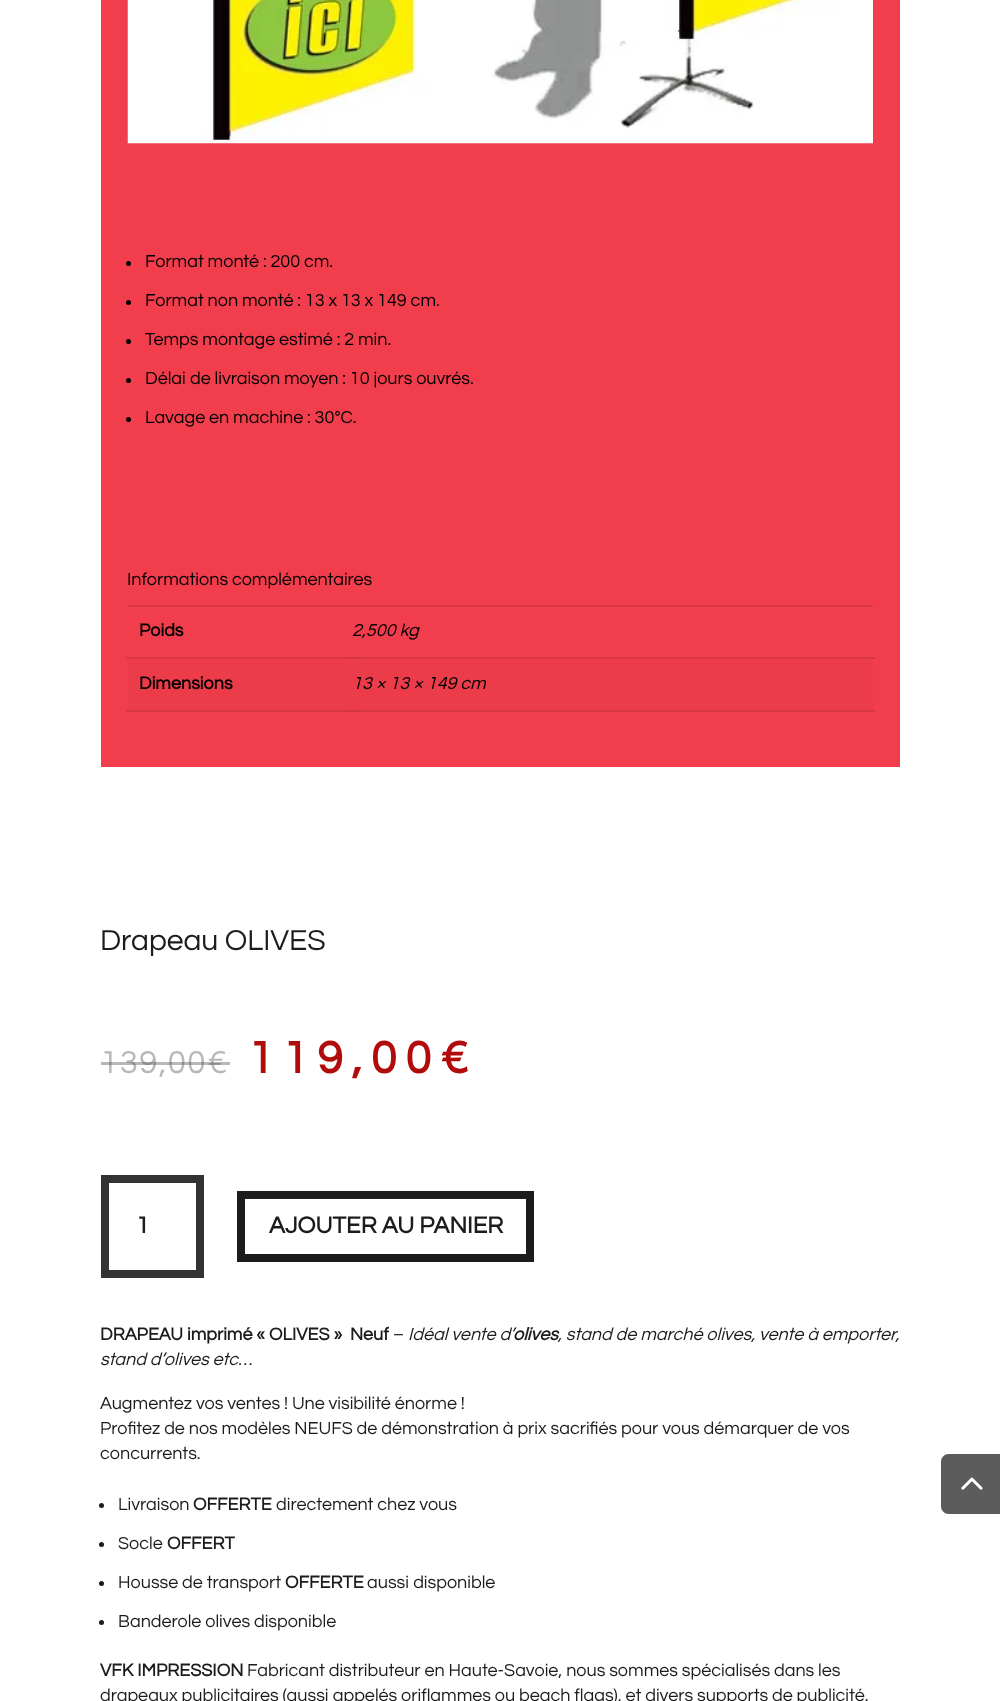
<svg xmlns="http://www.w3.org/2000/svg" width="1000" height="1701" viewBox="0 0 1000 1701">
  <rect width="100%" height="100%" fill="rgb(255,255,255)"/>
  <rect x="101" y="0" width="799" height="767" fill="rgb(242,61,76)"/>
  <rect x="126" y="657" width="749" height="2" fill="rgb(218,55,68)"/>
  <rect x="126" y="710" width="749" height="2" fill="rgb(218,55,68)"/>
  <rect x="351" y="711" width="2" height="1" fill="rgb(196,50,61)"/>
  <image x="127" y="0" width="746" height="144" href="pic1.png"/>
  <circle cx="128.5" cy="263.5" r="2.5" fill="rgb(0,0,0)"/>
  <text x="145" y="267" font-family="Questrial" font-size="18" fill="rgb(0,0,0)">Format monté : 200 cm.</text>
  <circle cx="128.5" cy="302.5" r="2.5" fill="rgb(0,0,0)"/>
  <text x="145" y="306" font-family="Questrial" font-size="18" fill="rgb(0,0,0)">Format non monté : 13 x 13 x 149 cm.</text>
  <circle cx="128.5" cy="341.5" r="2.5" fill="rgb(0,0,0)"/>
  <text x="145" y="345" font-family="Questrial" font-size="18" fill="rgb(0,0,0)">Temps montage estimé : 2 min.</text>
  <circle cx="128.5" cy="380.5" r="2.5" fill="rgb(0,0,0)"/>
  <text x="145" y="384" font-family="Questrial" font-size="18" fill="rgb(0,0,0)">Délai de livraison moyen : 10 jours ouvrés.</text>
  <circle cx="128.5" cy="419.5" r="2.5" fill="rgb(0,0,0)"/>
  <g font-family="Questrial" font-size="18" fill="rgb(0,0,0)">
    <text x="145" y="423">Lavage en machine : 30°C.</text>
    <text x="127" y="585">Informations complémentaires</text>
  </g>
  <rect x="128" y="605" width="745" height="2" fill="rgb(218,55,68)"/>
  <text x="139" y="636" font-family="Questrial" font-size="18" font-weight="bold" fill="rgb(0,0,0)">Poids</text>
  <rect x="351" y="657" width="2" height="2" fill="rgb(196,50,61)"/>
  <text x="352" y="636" font-family="Questrial" font-size="18" font-style="italic" fill="rgb(0,0,0)">2,500 kg</text>
  <rect x="128" y="659" width="745" height="51" fill="rgb(236,60,74)"/>
  <rect x="128" y="710" width="745" height="1" fill="rgb(212,54,67)"/>
  <rect x="351" y="710" width="2" height="1" fill="rgb(191,49,60)"/>
  <text x="139" y="689" font-family="Questrial" font-size="18" font-weight="bold" fill="rgb(0,0,0)">Dimensions</text>
  <text x="352" y="689" font-family="Questrial" font-size="18" font-style="italic" fill="rgb(0,0,0)">13 × 13 × 149 cm</text>
  <text x="100" y="950" font-family="Questrial" font-size="30" fill="rgb(28,28,28)">Drapeau OLIVES</text>
  <text x="100" y="1073" font-family="Questrial" font-size="33" letter-spacing="1.5" fill="rgb(184,184,184)">139,00€</text>
  <rect x="101" y="1062" width="106" height="3" fill="rgba(77,77,77,0.4)"/>
  <rect x="207" y="1062" width="23" height="3" fill="rgba(77,77,77,0.4)"/>
  <text x="248" y="1073" font-family="Questrial" font-size="46.5" font-weight="bold" letter-spacing="9" fill="rgb(178,11,11)">119,00€</text>
  <rect x="105" y="1179" width="95" height="95" fill="none" stroke="rgb(51,51,51)" stroke-width="8"/>
  <text x="136" y="1233" font-family="Questrial" font-size="24" font-weight="bold" fill="rgb(28,28,28)">1</text>
  <rect x="241" y="1195" width="289" height="63" fill="none" stroke="rgb(28,28,28)" stroke-width="8"/>
  <text x="269" y="1233" font-family="Questrial" font-size="24" font-weight="bold" fill="rgb(28,28,28)">AJOUTER AU PANIER</text>
  <text x="100" y="1340" font-family="Questrial" font-size="18" font-weight="bold" fill="rgb(28,28,28)" xml:space="preserve">DRAPEAU imprimé « OLIVES »  Neuf</text>
  <text x="393" y="1340" font-family="Questrial" font-size="18" fill="rgb(28,28,28)">–</text>
  <text x="408" y="1340" font-family="Questrial" font-size="18" font-style="italic" fill="rgb(28,28,28)">Idéal vente d’</text>
  <text x="513" y="1340" font-family="Questrial" font-size="18" font-weight="bold" font-style="italic" fill="rgb(28,28,28)">olives</text>
  <g font-family="Questrial" font-size="18" font-style="italic" fill="rgb(28,28,28)">
    <text x="558" y="1340">, stand de marché olives, vente à emporter,</text>
    <text x="100" y="1365">stand d’olives etc…</text>
  </g>
  <g font-family="Questrial" font-size="18" fill="rgb(28,28,28)">
    <text>
      <tspan x="100" y="1409">Augmentez vos ventes ! Une visibilité énorme !</tspan>
      <tspan x="100" y="1434">Profitez de nos modèles NEUFS de démonstration à prix sacrifiés pour vous démarquer de vos</tspan>
      <tspan x="100" y="1459">concurrents.</tspan>
    </text>
  </g>
  <circle cx="101.5" cy="1505.5" r="2.5" fill="rgb(28,28,28)"/>
  <text x="118" y="1510" font-family="Questrial" font-size="18" fill="rgb(28,28,28)">Livraison</text>
  <text x="193" y="1510" font-family="Questrial" font-size="18" font-weight="bold" fill="rgb(28,28,28)">OFFERTE</text>
  <text x="276" y="1510" font-family="Questrial" font-size="18" fill="rgb(28,28,28)">directement chez vous</text>
  <circle cx="101.5" cy="1544.5" r="2.5" fill="rgb(28,28,28)"/>
  <text x="118" y="1549" font-family="Questrial" font-size="18" fill="rgb(28,28,28)">Socle</text>
  <text x="167" y="1549" font-family="Questrial" font-size="18" font-weight="bold" fill="rgb(28,28,28)">OFFERT</text>
  <circle cx="101.5" cy="1583.5" r="2.5" fill="rgb(28,28,28)"/>
  <text x="118" y="1588" font-family="Questrial" font-size="18" fill="rgb(28,28,28)">Housse de transport</text>
  <text x="285" y="1588" font-family="Questrial" font-size="18" font-weight="bold" fill="rgb(28,28,28)">OFFERTE</text>
  <text x="367" y="1588" font-family="Questrial" font-size="18" fill="rgb(28,28,28)">aussi disponible</text>
  <circle cx="101.5" cy="1622.5" r="2.5" fill="rgb(28,28,28)"/>
  <text x="118" y="1627" font-family="Questrial" font-size="18" fill="rgb(28,28,28)">Banderole olives disponible</text>
  <text x="100" y="1676" font-family="Questrial" font-size="18" font-weight="bold" fill="rgb(28,28,28)">VFK IMPRESSION</text>
  <g font-family="Questrial" font-size="18" fill="rgb(28,28,28)">
    <text x="247" y="1676">Fabricant distributeur en Haute-Savoie, nous sommes spécialisés dans les</text>
    <text x="100" y="1701">drapeaux publicitaires (aussi appelés oriflammes ou beach flags), et divers supports de publicité.</text>
  </g>
  <path d="M949 1454H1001V1514H949C944.5 1514 941 1510.5 941 1506V1462C941 1457.5 944.5 1454 949 1454Z" fill="rgb(153,153,153)"/>
  <image x="961" y="1477" width="22" height="13" href="pic2.png"/>
  <path d="M949 1454H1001V1514H949C944.5 1514 941 1510.5 941 1506V1462C941 1457.5 944.5 1454 949 1454Z" fill="rgba(0,0,0,0.4)"/>
  <image x="961" y="1477" width="22" height="13" href="pic3.png"/>
</svg>
